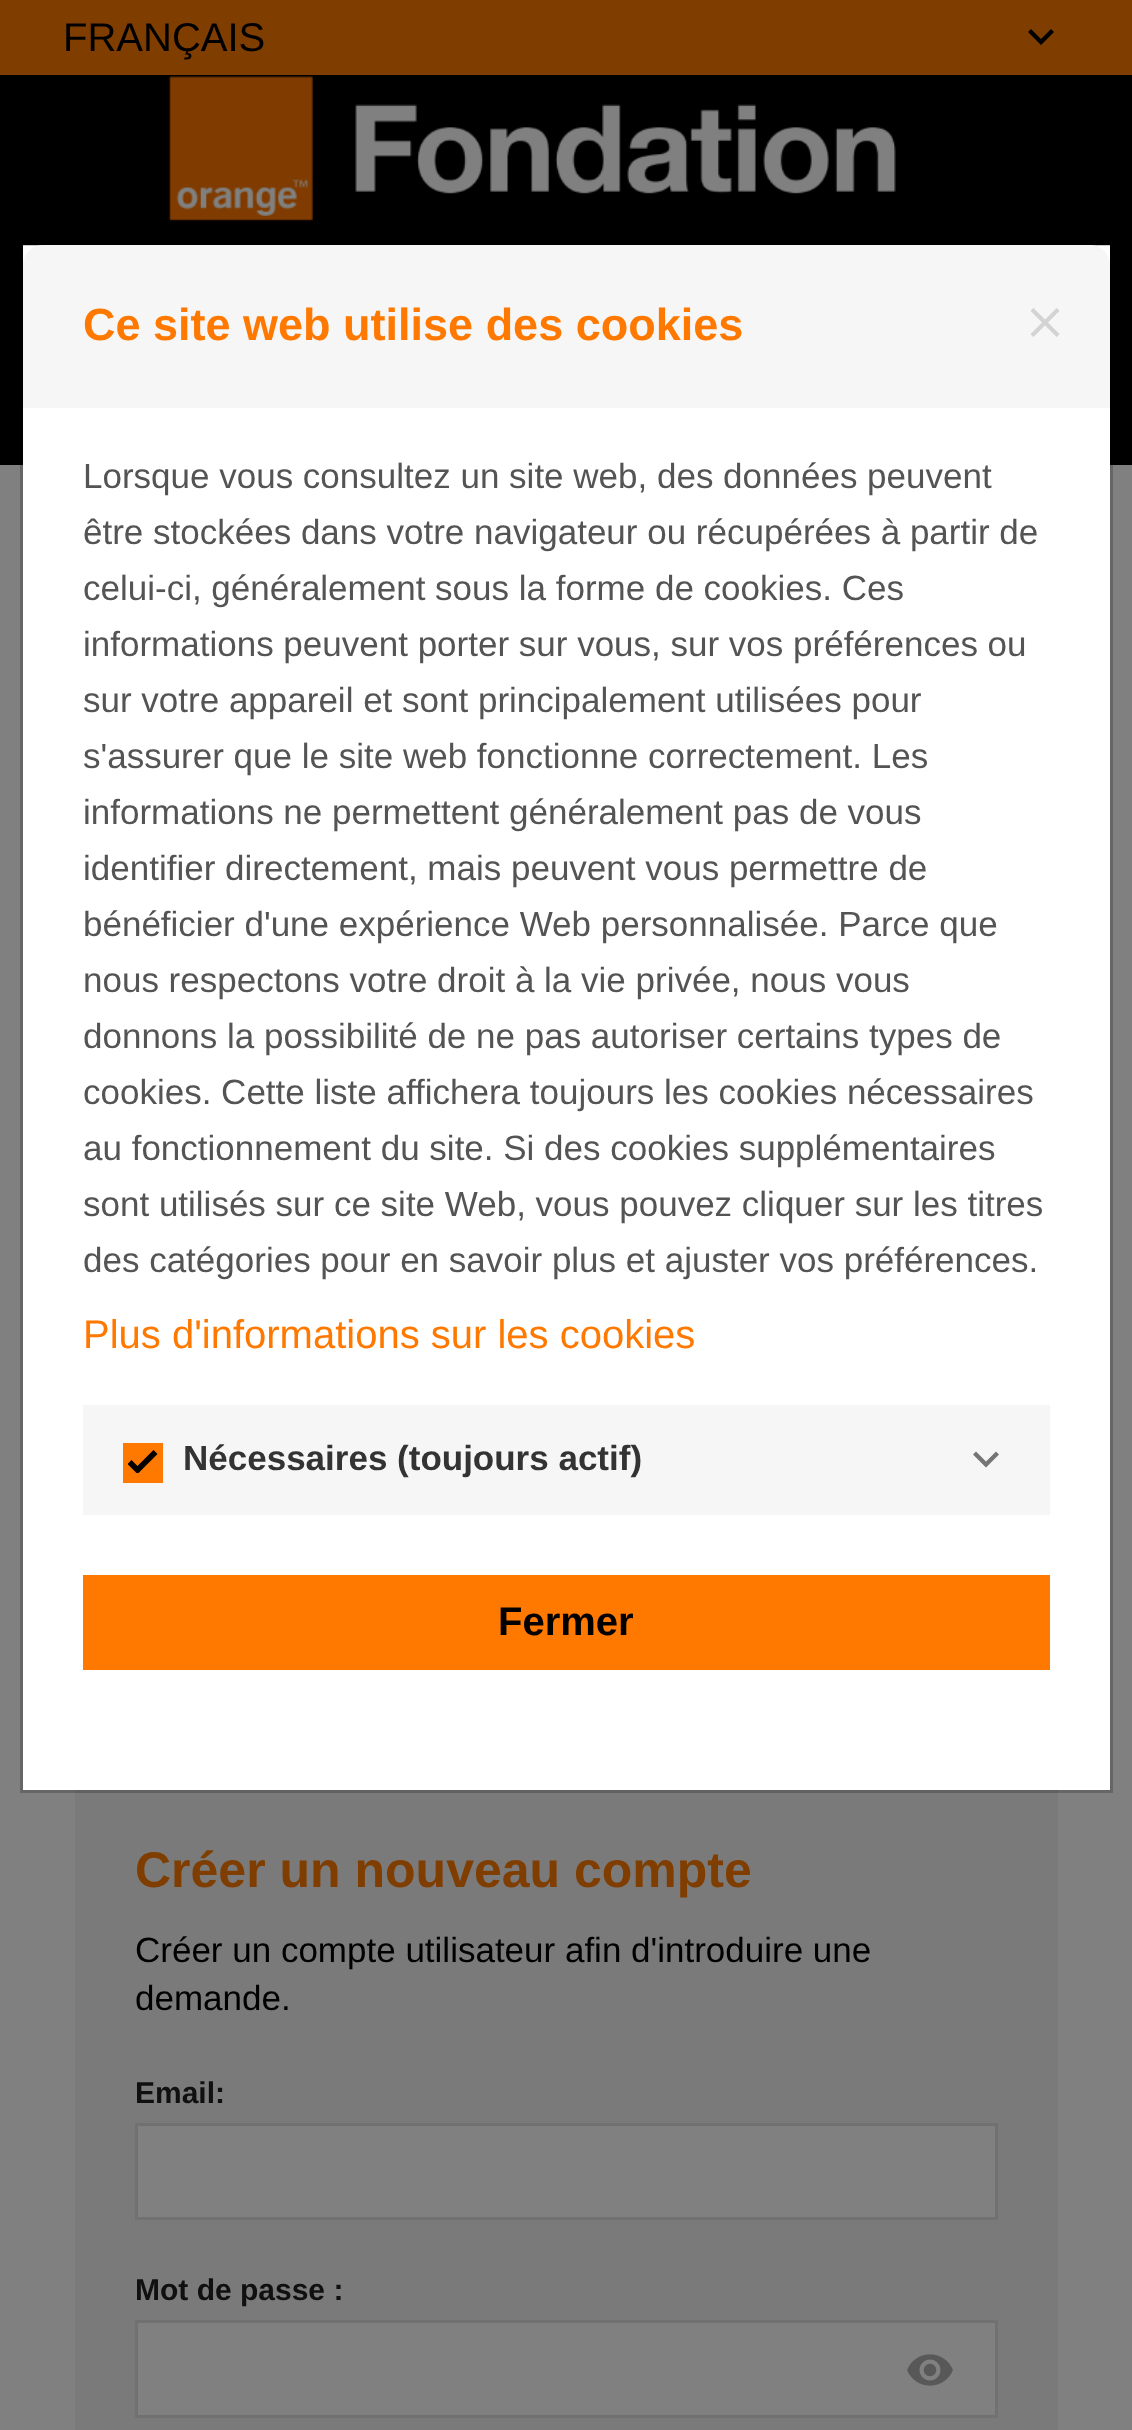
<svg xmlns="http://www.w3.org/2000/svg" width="1132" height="2430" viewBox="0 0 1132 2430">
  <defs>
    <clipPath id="clip1"><rect x="128" y="1450" width="30" height="23"/></clipPath>
  </defs>
  <rect width="100%" height="100%" fill="rgb(128,128,128)"/>
  <rect x="0" y="75" width="1132" height="390" fill="rgb(0,0,0)"/>
  <rect x="0" y="0" width="1132" height="75" fill="rgb(128,61,0)"/>
  <text x="63" y="51" font-family="Liberation Sans" font-size="40" fill="rgb(0,0,0)">FRANÇAIS</text>
  <path d="M1051 29L1054 32L1041 45L1028 32L1031 29L1041 39Z" fill="rgb(0,0,0)"/>
  <image x="168" y="76" width="728" height="146" href="pic1.png"/>
  <rect x="23" y="245" width="1087" height="1545" fill="rgb(255,255,255)"/>
  <rect x="75" y="1790" width="983" height="640" fill="rgb(122,122,122)"/>
  <rect x="21.5" y="244.5" width="1090" height="1547" fill="none" stroke="rgba(0,0,0,0.2)" stroke-width="3"/>
  <path d="M43 245H1090C1101 245 1110 254 1110 265V408H23V265C23 254 32 245 43 245Z" fill="rgb(246,246,246)"/>
  <text x="83" y="340" font-family="Liberation Sans" font-size="45" font-weight="bold" fill="rgb(255,121,0)">Ce site web utilise des cookies</text>
  <image x="1030" y="308" width="30" height="29" href="pic2.png"/>
  <g font-family="Liberation Sans" font-size="35" fill="rgb(84,84,84)">
    <text>
      <tspan x="83" y="488">Lorsque vous consultez un site web, des données peuvent</tspan>
      <tspan x="83" y="544">être stockées dans votre navigateur ou récupérées à partir de</tspan>
      <tspan x="83" y="600">celui-ci, généralement sous la forme de cookies. Ces</tspan>
      <tspan x="83" y="656">informations peuvent porter sur vous, sur vos préférences ou</tspan>
      <tspan x="83" y="712">sur votre appareil et sont principalement utilisées pour</tspan>
      <tspan x="83" y="768">s'assurer que le site web fonctionne correctement. Les</tspan>
      <tspan x="83" y="824">informations ne permettent généralement pas de vous</tspan>
      <tspan x="83" y="880">identifier directement, mais peuvent vous permettre de</tspan>
      <tspan x="83" y="936">bénéficier d'une expérience Web personnalisée. Parce que</tspan>
      <tspan x="83" y="992">nous respectons votre droit à la vie privée, nous vous</tspan>
      <tspan x="83" y="1048">donnons la possibilité de ne pas autoriser certains types de</tspan>
      <tspan x="83" y="1104">cookies. Cette liste affichera toujours les cookies nécessaires</tspan>
      <tspan x="83" y="1160">au fonctionnement du site. Si des cookies supplémentaires</tspan>
      <tspan x="83" y="1216">sont utilisés sur ce site Web, vous pouvez cliquer sur les titres</tspan>
      <tspan x="83" y="1272">des catégories pour en savoir plus et ajuster vos préférences.</tspan>
    </text>
  </g>
  <text x="83" y="1348" font-family="Liberation Sans" font-size="40" fill="rgb(255,121,0)">Plus d'informations sur les cookies</text>
  <rect x="83" y="1405" width="967" height="110" fill="rgb(246,246,246)"/>
  <rect x="123" y="1443" width="40" height="40" fill="rgb(255,121,0)"/>
  <g clip-path="url(#clip1)">
    <path d="M153.5 1450L137.5 1466L131.5 1460L127.5 1464L137.5 1474L157.5 1454Z" fill="rgb(0,0,0)"/>
  </g>
  <text x="183" y="1470" font-family="Liberation Sans" font-size="35" font-weight="bold" fill="rgb(51,51,51)">Nécessaires (toujours actif)</text>
  <path d="M996 1451.5L999 1454.5L986 1467.5L973 1454.5L976 1451.5L986 1461.5Z" fill="rgb(117,117,117)"/>
  <rect x="83" y="1575" width="967" height="95" fill="rgb(255,121,0)"/>
  <text x="498" y="1635" font-family="Liberation Sans" font-size="40" font-weight="bold" fill="rgb(0,0,0)">Fermer</text>
  <text x="135" y="1887" font-family="Liberation Sans" font-size="50" font-weight="bold" fill="rgb(128,61,0)">Créer un nouveau compte</text>
  <g font-family="Liberation Sans" font-size="35" fill="rgb(0,0,0)">
    <text>
      <tspan x="135" y="1962">Créer un compte utilisateur afin d'introduire une</tspan>
      <tspan x="135" y="2010">demande.</tspan>
    </text>
  </g>
  <text x="135" y="2103" font-family="Liberation Sans" font-size="30" font-weight="bold" fill="rgb(16,16,16)">Email:</text>
  <rect x="136.5" y="2124.5" width="860" height="94" fill="rgb(128,128,128)" stroke="rgb(113,113,113)" stroke-width="3"/>
  <text x="135" y="2300" font-family="Liberation Sans" font-size="30" font-weight="bold" fill="rgb(16,16,16)">Mot de passe :</text>
  <rect x="136.5" y="2321.5" width="730" height="95" fill="rgb(128,128,128)" stroke="rgb(113,113,113)" stroke-width="3"/>
  <rect x="865" y="2323" width="130" height="92" fill="rgb(128,128,128)"/>
  <rect x="865" y="2320" width="133" height="3" fill="rgb(113,113,113)"/>
  <rect x="995" y="2320" width="3" height="98" fill="rgb(113,113,113)"/>
  <rect x="865" y="2415" width="133" height="3" fill="rgb(113,113,113)"/>
  <image x="907" y="2354" width="46" height="32" href="pic3.png"/>
</svg>
